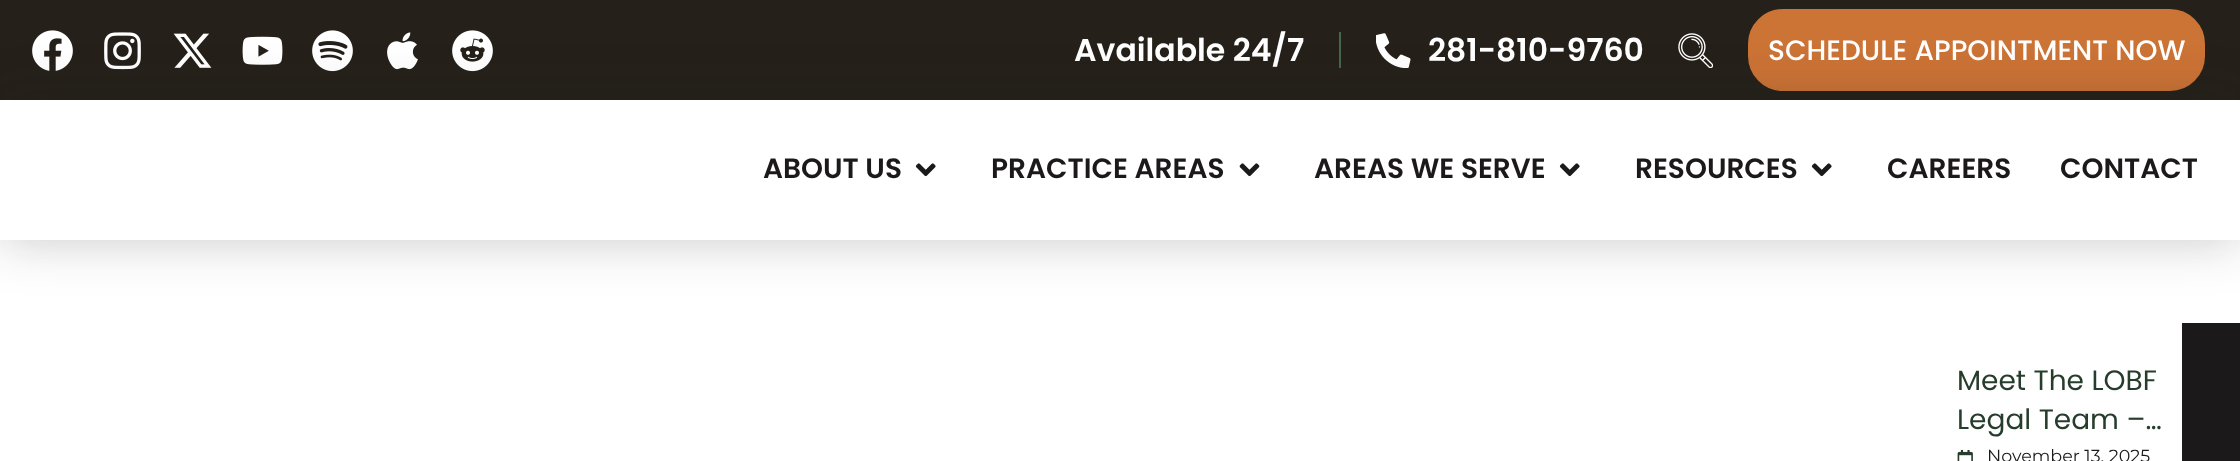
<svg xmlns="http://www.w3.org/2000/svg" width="2240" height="461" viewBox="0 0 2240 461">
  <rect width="100%" height="100%" fill="rgb(255,255,255)"/>
  <rect x="0" y="0" width="2240" height="100" fill="rgb(37,33,26)"/>
  <image x="32" y="30" width="41" height="41" href="pic1.png"/>
  <image x="104" y="32" width="37" height="38" href="pic2.png"/>
  <image x="173" y="33" width="39" height="35" href="pic3.png"/>
  <image x="242" y="36" width="41" height="29" href="pic4.png"/>
  <image x="312" y="30" width="41" height="42" href="pic5.png"/>
  <image x="387" y="32" width="31" height="38" href="pic6.png"/>
  <image x="452" y="30" width="41" height="42" href="pic7.png"/>
  <text x="1074" y="61" font-family="Poppins" font-size="31.5" font-weight="600" fill="rgb(255,255,255)">Available 24/7</text>
  <rect x="1339" y="32" width="2" height="36" fill="rgb(69,103,77)"/>
  <image x="1376" y="33" width="35" height="35" href="pic8.png"/>
  <text x="1428" y="61" font-family="Poppins" font-size="31.5" font-weight="600" fill="rgb(255,255,255)">281-810-9760</text>
  <image x="1678" y="33" width="35" height="35" href="pic9.png"/>
  <rect x="1749" y="10" width="455" height="80" rx="34" fill="rgb(204,115,54)" stroke="rgb(204,115,54)" stroke-width="2"/>
  <text x="1768" y="60" font-family="Poppins" font-size="28" font-weight="500" fill="rgb(255,255,255)">SCHEDULE APPOINTMENT NOW</text>
  <rect x="0" y="100" width="2240" height="140" fill="rgba(27,25,25,0.24)" filter="blur(26px)"/>
  <rect x="0" y="100" width="2240" height="140" fill="rgb(255,255,255)"/>
  <text x="763" y="178" font-family="Poppins" font-size="28" font-weight="600" fill="rgb(27,25,25)">ABOUT US</text>
  <image x="915" y="163" width="21" height="14" href="pic10.png"/>
  <text x="991" y="178" font-family="Poppins" font-size="28" font-weight="600" fill="rgb(27,25,25)">PRACTICE AREAS</text>
  <image x="1239" y="163" width="21" height="14" href="pic11.png"/>
  <text x="1314" y="178" font-family="Poppins" font-size="28" font-weight="600" fill="rgb(27,25,25)">AREAS WE SERVE</text>
  <image x="1559" y="163" width="21" height="14" href="pic10.png"/>
  <text x="1635" y="178" font-family="Poppins" font-size="28" font-weight="600" fill="rgb(27,25,25)">RESOURCES</text>
  <image x="1811" y="163" width="21" height="14" href="pic10.png"/>
  <g font-family="Poppins" font-size="28" font-weight="600" fill="rgb(27,25,25)">
    <text x="1887" y="178">CAREERS</text>
    <text x="2060" y="178">CONTACT</text>
  </g>
  <g font-family="Poppins" font-size="28" fill="rgb(39,61,44)">
    <text>
      <tspan x="1957" y="390">Meet The LOBF</tspan>
      <tspan x="1957" y="429">Legal Team –…</tspan>
    </text>
  </g>
  <image x="1957" y="450" width="16" height="11" href="pic12.png"/>
  <text x="1987" y="462" font-family="Montserrat" font-size="17.5" fill="rgb(27,25,25)">November 13, 2025</text>
  <rect x="2182" y="323" width="58" height="138" fill="rgb(27,25,25)"/>
</svg>
